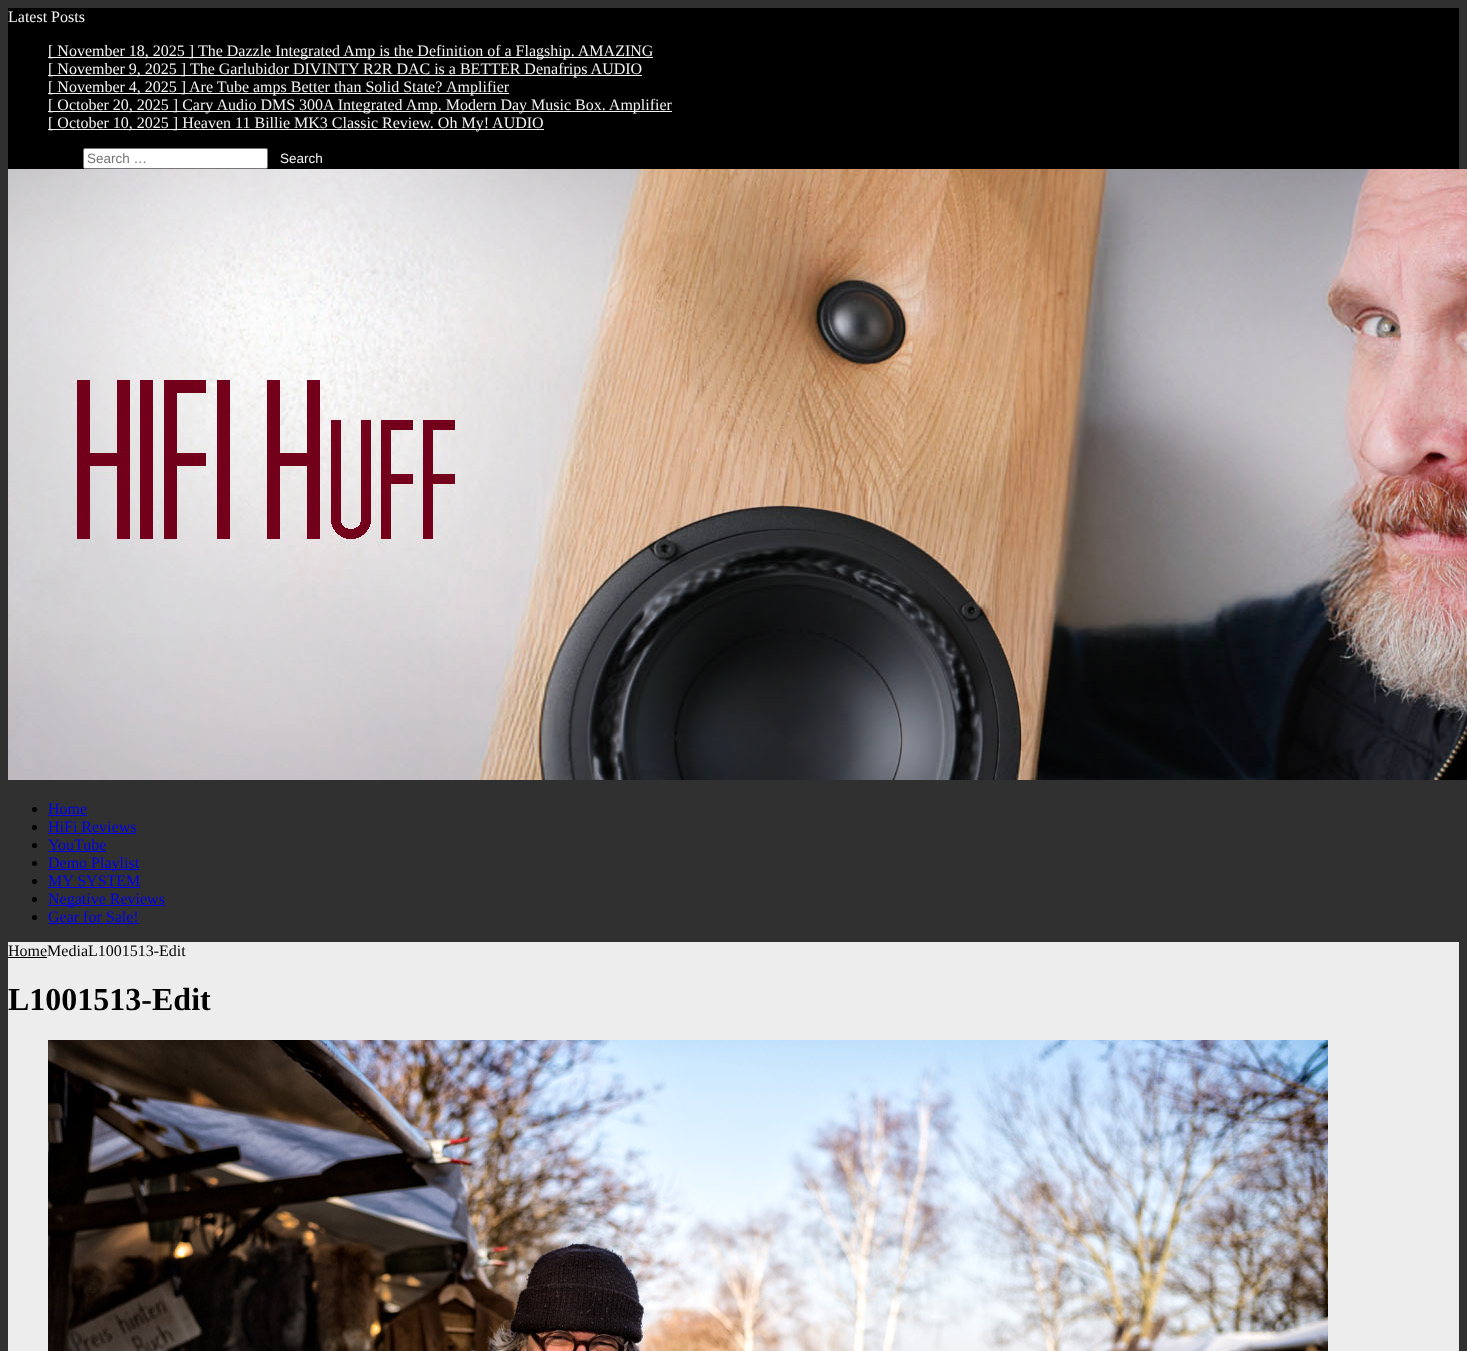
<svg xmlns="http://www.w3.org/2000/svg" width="1467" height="1351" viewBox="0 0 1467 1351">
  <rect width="100%" height="100%" fill="rgb(48,48,48)"/>
  <rect x="8" y="8" width="1451" height="161" fill="rgb(0,0,0)"/>
  <text x="8" y="22" font-family="Liberation Serif" font-size="16" fill="rgb(242,242,242)">Latest Posts</text>
  <rect x="48" y="57" width="605" height="1" fill="rgb(242,242,242)"/>
  <text x="48" y="56" font-family="Liberation Serif" font-size="16" fill="rgb(242,242,242)">[ November 18, 2025 ] The Dazzle Integrated Amp is the Definition of a Flagship. AMAZING</text>
  <rect x="48" y="75" width="594" height="1" fill="rgb(242,242,242)"/>
  <text x="48" y="74" font-family="Liberation Serif" font-size="16" fill="rgb(242,242,242)">[ November 9, 2025 ] The Garlubidor DIVINTY R2R DAC is a BETTER Denafrips AUDIO</text>
  <rect x="48" y="93" width="461" height="1" fill="rgb(242,242,242)"/>
  <g font-family="Liberation Serif" font-size="16" fill="rgb(242,242,242)">
    <text x="48" y="92">[ November 4, 2025 ]</text>
    <text x="189" y="92">Are Tube amps Better than Solid State?</text>
    <text x="446" y="92">Amplifier</text>
  </g>
  <rect x="48" y="111" width="624" height="1" fill="rgb(242,242,242)"/>
  <text x="48" y="110" font-family="Liberation Serif" font-size="16" fill="rgb(242,242,242)">[ October 20, 2025 ] Cary Audio DMS 300A Integrated Amp. Modern Day Music Box. Amplifier</text>
  <rect x="48" y="129" width="496" height="1" fill="rgb(242,242,242)"/>
  <text x="48" y="128" font-family="Liberation Serif" font-size="16" fill="rgb(242,242,242)">[ October 10, 2025 ] Heaven 11 Billie MK3 Classic Review. Oh My! AUDIO</text>
  <rect x="83.5" y="148.5" width="184" height="20" rx="1.5" fill="rgb(255,255,255)" stroke="rgb(118,118,118)"/>
  <text x="87" y="163" font-family="Liberation Sans" font-size="13.5" fill="rgb(117,117,117)">Search …</text>
  <text x="280" y="163" font-family="Liberation Sans" font-size="13.5" fill="rgb(242,242,242)">Search</text>
  <image x="8" y="169" width="1459" height="611" href="pic1.png"/>
  <circle cx="34.5" cy="809.5" r="2.5" fill="rgb(0,0,0)"/>
  <text x="48" y="814" font-family="Liberation Serif" font-size="16" fill="rgb(0,0,238)">Home</text>
  <rect x="48" y="815" width="39" height="1" fill="rgb(0,0,238)"/>
  <circle cx="34.5" cy="827.5" r="2.5" fill="rgb(0,0,0)"/>
  <text x="48" y="832" font-family="Liberation Serif" font-size="16" fill="rgb(0,0,238)">HiFi Reviews</text>
  <rect x="48" y="833" width="88" height="1" fill="rgb(0,0,238)"/>
  <circle cx="34.5" cy="845.5" r="2.5" fill="rgb(0,0,0)"/>
  <text x="48" y="850" font-family="Liberation Serif" font-size="16" fill="rgb(0,0,238)">YouTube</text>
  <rect x="48" y="851" width="58" height="1" fill="rgb(0,0,238)"/>
  <circle cx="34.5" cy="863.5" r="2.5" fill="rgb(0,0,0)"/>
  <rect x="48" y="869" width="91" height="1" fill="rgb(0,0,238)"/>
  <text x="48" y="868" font-family="Liberation Serif" font-size="16" fill="rgb(0,0,238)">Demo Playlist</text>
  <circle cx="34.5" cy="881.5" r="2.5" fill="rgb(0,0,0)"/>
  <text x="48" y="886" font-family="Liberation Serif" font-size="16" fill="rgb(0,0,238)">MY SYSTEM</text>
  <rect x="48" y="887" width="92" height="1" fill="rgb(0,0,238)"/>
  <circle cx="34.5" cy="899.5" r="2.5" fill="rgb(0,0,0)"/>
  <rect x="48" y="905" width="117" height="1" fill="rgb(0,0,238)"/>
  <text x="48" y="904" font-family="Liberation Serif" font-size="16" fill="rgb(0,0,238)">Negative Reviews</text>
  <circle cx="34.5" cy="917.5" r="2.5" fill="rgb(0,0,0)"/>
  <text x="48" y="922" font-family="Liberation Serif" font-size="16" fill="rgb(0,0,238)">Gear for Sale!</text>
  <rect x="48" y="923" width="91" height="1" fill="rgb(0,0,238)"/>
  <rect x="8" y="942" width="1451" height="409" fill="rgb(237,237,237)"/>
  <text x="8" y="956" font-family="Liberation Serif" font-size="16" fill="rgb(0,0,0)">HomeMediaL1001513-Edit</text>
  <rect x="8" y="957" width="39" height="1" fill="rgb(0,0,0)"/>
  <text x="8" y="1010" font-family="Liberation Serif" font-size="32" font-weight="bold" fill="rgb(0,0,0)">L1001513-Edit</text>
  <image x="48" y="1040" width="1280" height="311" href="pic2.png"/>
</svg>
